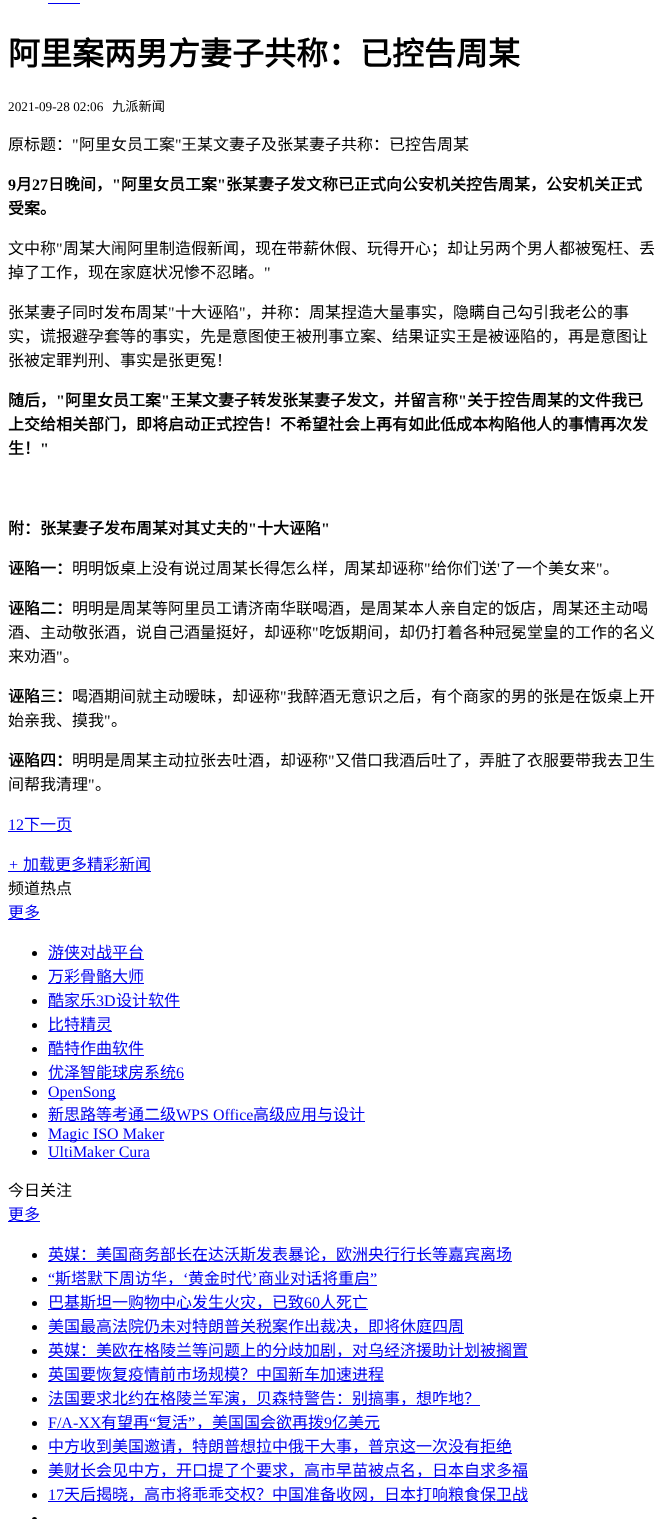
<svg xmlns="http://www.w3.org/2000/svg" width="663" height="1519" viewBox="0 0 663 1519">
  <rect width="100%" height="100%" fill="rgb(255,255,255)"/>
  <rect x="48" y="3" width="32" height="1" fill="rgb(0,0,238)"/>
  <text x="8" y="65" font-family="Noto Sans CJK SC" font-size="32" font-weight="bold" fill="rgb(0,0,0)">阿里案两男方妻子共称：已控告周某</text>
  <text x="8" y="111" font-family="Liberation Serif" font-size="13.25" fill="rgb(0,0,0)">2021-09-28 02:06</text>
  <text x="112" y="111" font-family="Noto Sans CJK SC" font-size="13.25" fill="rgb(0,0,0)">九派新闻</text>
  <text x="8" y="150" font-family="Noto Sans CJK SC" font-size="16" fill="rgb(0,0,0)">原标题：</text>
  <text x="72" y="150" font-family="Liberation Serif" font-size="16" fill="rgb(0,0,0)">"</text>
  <text x="79" y="150" font-family="Noto Sans CJK SC" font-size="16" fill="rgb(0,0,0)">阿里女员工案</text>
  <text x="175" y="150" font-family="Liberation Serif" font-size="16" fill="rgb(0,0,0)">"</text>
  <text x="181" y="150" font-family="Noto Sans CJK SC" font-size="16" fill="rgb(0,0,0)">王某文妻子及张某妻子共称：已控告周某</text>
  <text x="8" y="190" font-family="Liberation Serif" font-size="16" font-weight="bold" fill="rgb(0,0,0)">9</text>
  <text x="16" y="190" font-family="Noto Sans CJK SC" font-size="16" font-weight="bold" fill="rgb(0,0,0)">月</text>
  <text x="32" y="190" font-family="Liberation Serif" font-size="16" font-weight="bold" fill="rgb(0,0,0)">27</text>
  <text x="48" y="190" font-family="Noto Sans CJK SC" font-size="16" font-weight="bold" fill="rgb(0,0,0)">日晚间，</text>
  <text x="112" y="190" font-family="Liberation Serif" font-size="16" font-weight="bold" fill="rgb(0,0,0)">"</text>
  <text x="121" y="190" font-family="Noto Sans CJK SC" font-size="16" font-weight="bold" fill="rgb(0,0,0)">阿里女员工案</text>
  <text x="217" y="190" font-family="Liberation Serif" font-size="16" font-weight="bold" fill="rgb(0,0,0)">"</text>
  <g font-family="Noto Sans CJK SC" font-size="16" font-weight="bold" fill="rgb(0,0,0)">
    <text x="226" y="190">张某妻子发文称已正式向公安机关控告周某，公安机关正式</text>
    <text x="8" y="214">受案。</text>
  </g>
  <text x="8" y="254" font-family="Noto Sans CJK SC" font-size="16" fill="rgb(0,0,0)">文中称</text>
  <text x="56" y="254" font-family="Liberation Serif" font-size="16" fill="rgb(0,0,0)">"</text>
  <g font-family="Noto Sans CJK SC" font-size="16" fill="rgb(0,0,0)">
    <text x="63" y="254">周某大闹阿里制造假新闻，现在带薪休假、玩得开心；却让另两个男人都被冤枉、丢</text>
    <text x="8" y="278">掉了工作，现在家庭状况惨不忍睹。</text>
  </g>
  <text x="264" y="278" font-family="Liberation Serif" font-size="16" fill="rgb(0,0,0)">"</text>
  <text x="8" y="318" font-family="Noto Sans CJK SC" font-size="16" fill="rgb(0,0,0)">张某妻子同时发布周某</text>
  <text x="168" y="318" font-family="Liberation Serif" font-size="16" fill="rgb(0,0,0)">"</text>
  <text x="175" y="318" font-family="Noto Sans CJK SC" font-size="16" fill="rgb(0,0,0)">十大诬陷</text>
  <text x="239" y="318" font-family="Liberation Serif" font-size="16" fill="rgb(0,0,0)">"</text>
  <g font-family="Noto Sans CJK SC" font-size="16" fill="rgb(0,0,0)">
    <text x="245" y="318">，并称：周某捏造大量事实，隐瞒自己勾引我老公的事</text>
    <text>
      <tspan x="8" y="342">实，谎报避孕套等的事实，先是意图使王被刑事立案、结果证实王是被诬陷的，再是意图让</tspan>
      <tspan x="8" y="366">张被定罪判刑、事实是张更冤！</tspan>
    </text>
  </g>
  <text x="8" y="406" font-family="Noto Sans CJK SC" font-size="16" font-weight="bold" fill="rgb(0,0,0)">随后，</text>
  <text x="56" y="406" font-family="Liberation Serif" font-size="16" font-weight="bold" fill="rgb(0,0,0)">"</text>
  <text x="65" y="406" font-family="Noto Sans CJK SC" font-size="16" font-weight="bold" fill="rgb(0,0,0)">阿里女员工案</text>
  <text x="161" y="406" font-family="Liberation Serif" font-size="16" font-weight="bold" fill="rgb(0,0,0)">"</text>
  <text x="170" y="406" font-family="Noto Sans CJK SC" font-size="16" font-weight="bold" fill="rgb(0,0,0)">王某文妻子转发张某妻子发文，并留言称</text>
  <text x="458" y="406" font-family="Liberation Serif" font-size="16" font-weight="bold" fill="rgb(0,0,0)">"</text>
  <g font-family="Noto Sans CJK SC" font-size="16" font-weight="bold" fill="rgb(0,0,0)">
    <text x="467" y="406">关于控告周某的文件我已</text>
    <text>
      <tspan x="8" y="430">上交给相关部门，即将启动正式控告！不希望社会上再有如此低成本构陷他人的事情再次发</tspan>
      <tspan x="8" y="454">生！</tspan>
    </text>
  </g>
  <text x="40" y="454" font-family="Liberation Serif" font-size="16" font-weight="bold" fill="rgb(0,0,0)">"</text>
  <text x="8" y="534" font-family="Noto Sans CJK SC" font-size="16" font-weight="bold" fill="rgb(0,0,0)">附：张某妻子发布周某对其丈夫的</text>
  <text x="248" y="534" font-family="Liberation Serif" font-size="16" font-weight="bold" fill="rgb(0,0,0)">"</text>
  <text x="257" y="534" font-family="Noto Sans CJK SC" font-size="16" font-weight="bold" fill="rgb(0,0,0)">十大诬陷</text>
  <text x="321" y="534" font-family="Liberation Serif" font-size="16" font-weight="bold" fill="rgb(0,0,0)">"</text>
  <text x="8" y="574" font-family="Noto Sans CJK SC" font-size="16" font-weight="bold" fill="rgb(0,0,0)">诬陷一：</text>
  <text x="72" y="574" font-family="Noto Sans CJK SC" font-size="16" fill="rgb(0,0,0)">明明饭桌上没有说过周某长得怎么样，周某却诬称</text>
  <text x="424" y="574" font-family="Liberation Serif" font-size="16" fill="rgb(0,0,0)">"</text>
  <text x="431" y="574" font-family="Noto Sans CJK SC" font-size="16" fill="rgb(0,0,0)">给你们</text>
  <text x="479" y="574" font-family="Liberation Serif" font-size="16" fill="rgb(0,0,0)">'</text>
  <text x="481" y="574" font-family="Noto Sans CJK SC" font-size="16" fill="rgb(0,0,0)">送</text>
  <text x="497" y="574" font-family="Liberation Serif" font-size="16" fill="rgb(0,0,0)">'</text>
  <text x="500" y="574" font-family="Noto Sans CJK SC" font-size="16" fill="rgb(0,0,0)">了一个美女来</text>
  <text x="596" y="574" font-family="Liberation Serif" font-size="16" fill="rgb(0,0,0)">"</text>
  <text x="603" y="574" font-family="Noto Sans CJK SC" font-size="16" fill="rgb(0,0,0)">。</text>
  <text x="8" y="614" font-family="Noto Sans CJK SC" font-size="16" font-weight="bold" fill="rgb(0,0,0)">诬陷二：</text>
  <g font-family="Noto Sans CJK SC" font-size="16" fill="rgb(0,0,0)">
    <text x="72" y="614">明明是周某等阿里员工请济南华联喝酒，是周某本人亲自定的饭店，周某还主动喝</text>
    <text x="8" y="638">酒、主动敬张酒，说自己酒量挺好，却诬称</text>
  </g>
  <text x="312" y="638" font-family="Liberation Serif" font-size="16" fill="rgb(0,0,0)">"</text>
  <g font-family="Noto Sans CJK SC" font-size="16" fill="rgb(0,0,0)">
    <text x="319" y="638">吃饭期间，却仍打着各种冠冕堂皇的工作的名义</text>
    <text x="8" y="662">来劝酒</text>
  </g>
  <text x="56" y="662" font-family="Liberation Serif" font-size="16" fill="rgb(0,0,0)">"</text>
  <text x="63" y="662" font-family="Noto Sans CJK SC" font-size="16" fill="rgb(0,0,0)">。</text>
  <text x="8" y="702" font-family="Noto Sans CJK SC" font-size="16" font-weight="bold" fill="rgb(0,0,0)">诬陷三：</text>
  <text x="72" y="702" font-family="Noto Sans CJK SC" font-size="16" fill="rgb(0,0,0)">喝酒期间就主动暧昧，却诬称</text>
  <text x="280" y="702" font-family="Liberation Serif" font-size="16" fill="rgb(0,0,0)">"</text>
  <g font-family="Noto Sans CJK SC" font-size="16" fill="rgb(0,0,0)">
    <text x="287" y="702">我醉酒无意识之后，有个商家的男的张是在饭桌上开</text>
    <text x="8" y="726">始亲我、摸我</text>
  </g>
  <text x="104" y="726" font-family="Liberation Serif" font-size="16" fill="rgb(0,0,0)">"</text>
  <text x="111" y="726" font-family="Noto Sans CJK SC" font-size="16" fill="rgb(0,0,0)">。</text>
  <text x="8" y="766" font-family="Noto Sans CJK SC" font-size="16" font-weight="bold" fill="rgb(0,0,0)">诬陷四：</text>
  <text x="72" y="766" font-family="Noto Sans CJK SC" font-size="16" fill="rgb(0,0,0)">明明是周某主动拉张去吐酒，却诬称</text>
  <text x="328" y="766" font-family="Liberation Serif" font-size="16" fill="rgb(0,0,0)">"</text>
  <g font-family="Noto Sans CJK SC" font-size="16" fill="rgb(0,0,0)">
    <text x="335" y="766">又借口我酒后吐了，弄脏了衣服要带我去卫生</text>
    <text x="8" y="790">间帮我清理</text>
  </g>
  <text x="88" y="790" font-family="Liberation Serif" font-size="16" fill="rgb(0,0,0)">"</text>
  <text x="95" y="790" font-family="Noto Sans CJK SC" font-size="16" fill="rgb(0,0,0)">。</text>
  <text x="8" y="830" font-family="Liberation Serif" font-size="16" fill="rgb(0,0,238)">12</text>
  <rect x="8" y="831" width="64" height="1" fill="rgb(0,0,238)"/>
  <text x="24" y="830" font-family="Noto Sans CJK SC" font-size="16" fill="rgb(0,0,238)">下一页</text>
  <text x="8" y="870" font-family="Liberation Serif" font-size="16" font-style="italic" fill="rgb(0,0,238)">+</text>
  <rect x="8" y="871" width="143" height="1" fill="rgb(0,0,238)"/>
  <text x="23" y="870" font-family="Noto Sans CJK SC" font-size="16" fill="rgb(0,0,238)">加载更多精彩新闻</text>
  <text x="8" y="894" font-family="Noto Sans CJK SC" font-size="16" fill="rgb(0,0,0)">频道热点</text>
  <rect x="8" y="919" width="32" height="1" fill="rgb(0,0,238)"/>
  <text x="8" y="918" font-family="Noto Sans CJK SC" font-size="16" fill="rgb(0,0,238)">更多</text>
  <circle cx="34.5" cy="953.5" r="2.5" fill="rgb(0,0,0)"/>
  <rect x="48" y="959" width="96" height="1" fill="rgb(0,0,238)"/>
  <text x="48" y="958" font-family="Noto Sans CJK SC" font-size="16" fill="rgb(0,0,238)">游侠对战平台</text>
  <circle cx="34.5" cy="977.5" r="2.5" fill="rgb(0,0,0)"/>
  <rect x="48" y="983" width="96" height="1" fill="rgb(0,0,238)"/>
  <text x="48" y="982" font-family="Noto Sans CJK SC" font-size="16" fill="rgb(0,0,238)">万彩骨骼大师</text>
  <circle cx="34.5" cy="1001.5" r="2.5" fill="rgb(0,0,0)"/>
  <rect x="48" y="1007" width="132" height="1" fill="rgb(0,0,238)"/>
  <text x="48" y="1006" font-family="Noto Sans CJK SC" font-size="16" fill="rgb(0,0,238)">酷家乐</text>
  <text x="96" y="1006" font-family="Liberation Serif" font-size="16" fill="rgb(0,0,238)">3D</text>
  <text x="116" y="1006" font-family="Noto Sans CJK SC" font-size="16" fill="rgb(0,0,238)">设计软件</text>
  <circle cx="34.5" cy="1025.5" r="2.5" fill="rgb(0,0,0)"/>
  <rect x="48" y="1031" width="64" height="1" fill="rgb(0,0,238)"/>
  <text x="48" y="1030" font-family="Noto Sans CJK SC" font-size="16" fill="rgb(0,0,238)">比特精灵</text>
  <circle cx="34.5" cy="1049.5" r="2.5" fill="rgb(0,0,0)"/>
  <rect x="48" y="1055" width="96" height="1" fill="rgb(0,0,238)"/>
  <text x="48" y="1054" font-family="Noto Sans CJK SC" font-size="16" fill="rgb(0,0,238)">酷特作曲软件</text>
  <circle cx="34.5" cy="1073.5" r="2.5" fill="rgb(0,0,0)"/>
  <rect x="48" y="1079" width="136" height="1" fill="rgb(0,0,238)"/>
  <text x="48" y="1078" font-family="Noto Sans CJK SC" font-size="16" fill="rgb(0,0,238)">优泽智能球房系统</text>
  <text x="176" y="1078" font-family="Liberation Serif" font-size="16" fill="rgb(0,0,238)">6</text>
  <circle cx="34.5" cy="1092.5" r="2.5" fill="rgb(0,0,0)"/>
  <rect x="48" y="1098" width="68" height="1" fill="rgb(0,0,238)"/>
  <text x="48" y="1097" font-family="Liberation Serif" font-size="16" fill="rgb(0,0,238)">OpenSong</text>
  <circle cx="34.5" cy="1115.5" r="2.5" fill="rgb(0,0,0)"/>
  <rect x="48" y="1121" width="317" height="1" fill="rgb(0,0,238)"/>
  <text x="48" y="1120" font-family="Noto Sans CJK SC" font-size="16" fill="rgb(0,0,238)">新思路等考通二级</text>
  <text x="176" y="1120" font-family="Liberation Serif" font-size="16" fill="rgb(0,0,238)">WPS Office</text>
  <text x="253" y="1120" font-family="Noto Sans CJK SC" font-size="16" fill="rgb(0,0,238)">高级应用与设计</text>
  <circle cx="34.5" cy="1134.5" r="2.5" fill="rgb(0,0,0)"/>
  <rect x="48" y="1140" width="116" height="1" fill="rgb(0,0,238)"/>
  <text x="48" y="1139" font-family="Liberation Serif" font-size="16" fill="rgb(0,0,238)">Magic ISO Maker</text>
  <circle cx="34.5" cy="1152.5" r="2.5" fill="rgb(0,0,0)"/>
  <text x="48" y="1157" font-family="Liberation Serif" font-size="16" fill="rgb(0,0,238)">UltiMaker Cura</text>
  <rect x="48" y="1158" width="102" height="1" fill="rgb(0,0,238)"/>
  <text x="8" y="1196" font-family="Noto Sans CJK SC" font-size="16" fill="rgb(0,0,0)">今日关注</text>
  <rect x="8" y="1221" width="32" height="1" fill="rgb(0,0,238)"/>
  <text x="8" y="1220" font-family="Noto Sans CJK SC" font-size="16" fill="rgb(0,0,238)">更多</text>
  <circle cx="34.5" cy="1255.5" r="2.5" fill="rgb(0,0,0)"/>
  <rect x="48" y="1261" width="464" height="1" fill="rgb(0,0,238)"/>
  <text x="48" y="1260" font-family="Noto Sans CJK SC" font-size="16" fill="rgb(0,0,238)">英媒：美国商务部长在达沃斯发表暴论，欧洲央行行长等嘉宾离场</text>
  <text x="48" y="1284" font-family="Liberation Serif" font-size="16" fill="rgb(0,0,238)">“</text>
  <rect x="48" y="1285" width="329" height="1" fill="rgb(0,0,238)"/>
  <text x="55" y="1284" font-family="Noto Sans CJK SC" font-size="16" fill="rgb(0,0,238)">斯塔默下周访华，</text>
  <text x="183" y="1284" font-family="Liberation Serif" font-size="16" fill="rgb(0,0,238)">‘</text>
  <text x="188" y="1284" font-family="Noto Sans CJK SC" font-size="16" fill="rgb(0,0,238)">黄金时代</text>
  <text x="252" y="1284" font-family="Liberation Serif" font-size="16" fill="rgb(0,0,238)">’</text>
  <text x="258" y="1284" font-family="Noto Sans CJK SC" font-size="16" fill="rgb(0,0,238)">商业对话将重启</text>
  <text x="370" y="1284" font-family="Liberation Serif" font-size="16" fill="rgb(0,0,238)">”</text>
  <circle cx="34.5" cy="1279.5" r="2.5" fill="rgb(0,0,0)"/>
  <circle cx="34.5" cy="1303.5" r="2.5" fill="rgb(0,0,0)"/>
  <rect x="48" y="1309" width="320" height="1" fill="rgb(0,0,238)"/>
  <text x="48" y="1308" font-family="Noto Sans CJK SC" font-size="16" fill="rgb(0,0,238)">巴基斯坦一购物中心发生火灾，已致</text>
  <text x="304" y="1308" font-family="Liberation Serif" font-size="16" fill="rgb(0,0,238)">60</text>
  <text x="320" y="1308" font-family="Noto Sans CJK SC" font-size="16" fill="rgb(0,0,238)">人死亡</text>
  <circle cx="34.5" cy="1327.5" r="2.5" fill="rgb(0,0,0)"/>
  <rect x="48" y="1333" width="416" height="1" fill="rgb(0,0,238)"/>
  <text x="48" y="1332" font-family="Noto Sans CJK SC" font-size="16" fill="rgb(0,0,238)">美国最高法院仍未对特朗普关税案作出裁决，即将休庭四周</text>
  <circle cx="34.5" cy="1351.5" r="2.5" fill="rgb(0,0,0)"/>
  <rect x="48" y="1357" width="480" height="1" fill="rgb(0,0,238)"/>
  <text x="48" y="1356" font-family="Noto Sans CJK SC" font-size="16" fill="rgb(0,0,238)">英媒：美欧在格陵兰等问题上的分歧加剧，对乌经济援助计划被搁置</text>
  <circle cx="34.5" cy="1375.5" r="2.5" fill="rgb(0,0,0)"/>
  <rect x="48" y="1381" width="336" height="1" fill="rgb(0,0,238)"/>
  <text x="48" y="1380" font-family="Noto Sans CJK SC" font-size="16" fill="rgb(0,0,238)">英国要恢复疫情前市场规模？中国新车加速进程</text>
  <circle cx="34.5" cy="1399.5" r="2.5" fill="rgb(0,0,0)"/>
  <rect x="48" y="1405" width="432" height="1" fill="rgb(0,0,238)"/>
  <text x="48" y="1404" font-family="Noto Sans CJK SC" font-size="16" fill="rgb(0,0,238)">法国要求北约在格陵兰军演，贝森特警告：别搞事，想咋地？</text>
  <circle cx="34.5" cy="1423.5" r="2.5" fill="rgb(0,0,0)"/>
  <text x="48" y="1428" font-family="Liberation Serif" font-size="16" fill="rgb(0,0,238)">F/A-XX</text>
  <rect x="48" y="1429" width="332" height="1" fill="rgb(0,0,238)"/>
  <text x="101" y="1428" font-family="Noto Sans CJK SC" font-size="16" fill="rgb(0,0,238)">有望再</text>
  <text x="149" y="1428" font-family="Liberation Serif" font-size="16" fill="rgb(0,0,238)">“</text>
  <text x="156" y="1428" font-family="Noto Sans CJK SC" font-size="16" fill="rgb(0,0,238)">复活</text>
  <text x="188" y="1428" font-family="Liberation Serif" font-size="16" fill="rgb(0,0,238)">”</text>
  <text x="196" y="1428" font-family="Noto Sans CJK SC" font-size="16" fill="rgb(0,0,238)">，美国国会欲再拨</text>
  <text x="324" y="1428" font-family="Liberation Serif" font-size="16" fill="rgb(0,0,238)">9</text>
  <text x="332" y="1428" font-family="Noto Sans CJK SC" font-size="16" fill="rgb(0,0,238)">亿美元</text>
  <circle cx="34.5" cy="1447.5" r="2.5" fill="rgb(0,0,0)"/>
  <rect x="48" y="1453" width="464" height="1" fill="rgb(0,0,238)"/>
  <text x="48" y="1452" font-family="Noto Sans CJK SC" font-size="16" fill="rgb(0,0,238)">中方收到美国邀请，特朗普想拉中俄干大事，普京这一次没有拒绝</text>
  <circle cx="34.5" cy="1471.5" r="2.5" fill="rgb(0,0,0)"/>
  <rect x="48" y="1477" width="480" height="1" fill="rgb(0,0,238)"/>
  <text x="48" y="1476" font-family="Noto Sans CJK SC" font-size="16" fill="rgb(0,0,238)">美财长会见中方，开口提了个要求，高市早苗被点名，日本自求多福</text>
  <circle cx="34.5" cy="1495.5" r="2.5" fill="rgb(0,0,0)"/>
  <text x="48" y="1500" font-family="Liberation Serif" font-size="16" fill="rgb(0,0,238)">17</text>
  <rect x="48" y="1501" width="480" height="1" fill="rgb(0,0,238)"/>
  <text x="64" y="1500" font-family="Noto Sans CJK SC" font-size="16" fill="rgb(0,0,238)">天后揭晓，高市将乖乖交权？中国准备收网，日本打响粮食保卫战</text>
  <circle cx="34.5" cy="1519.5" r="2.5" fill="rgb(0,0,0)"/>
</svg>
